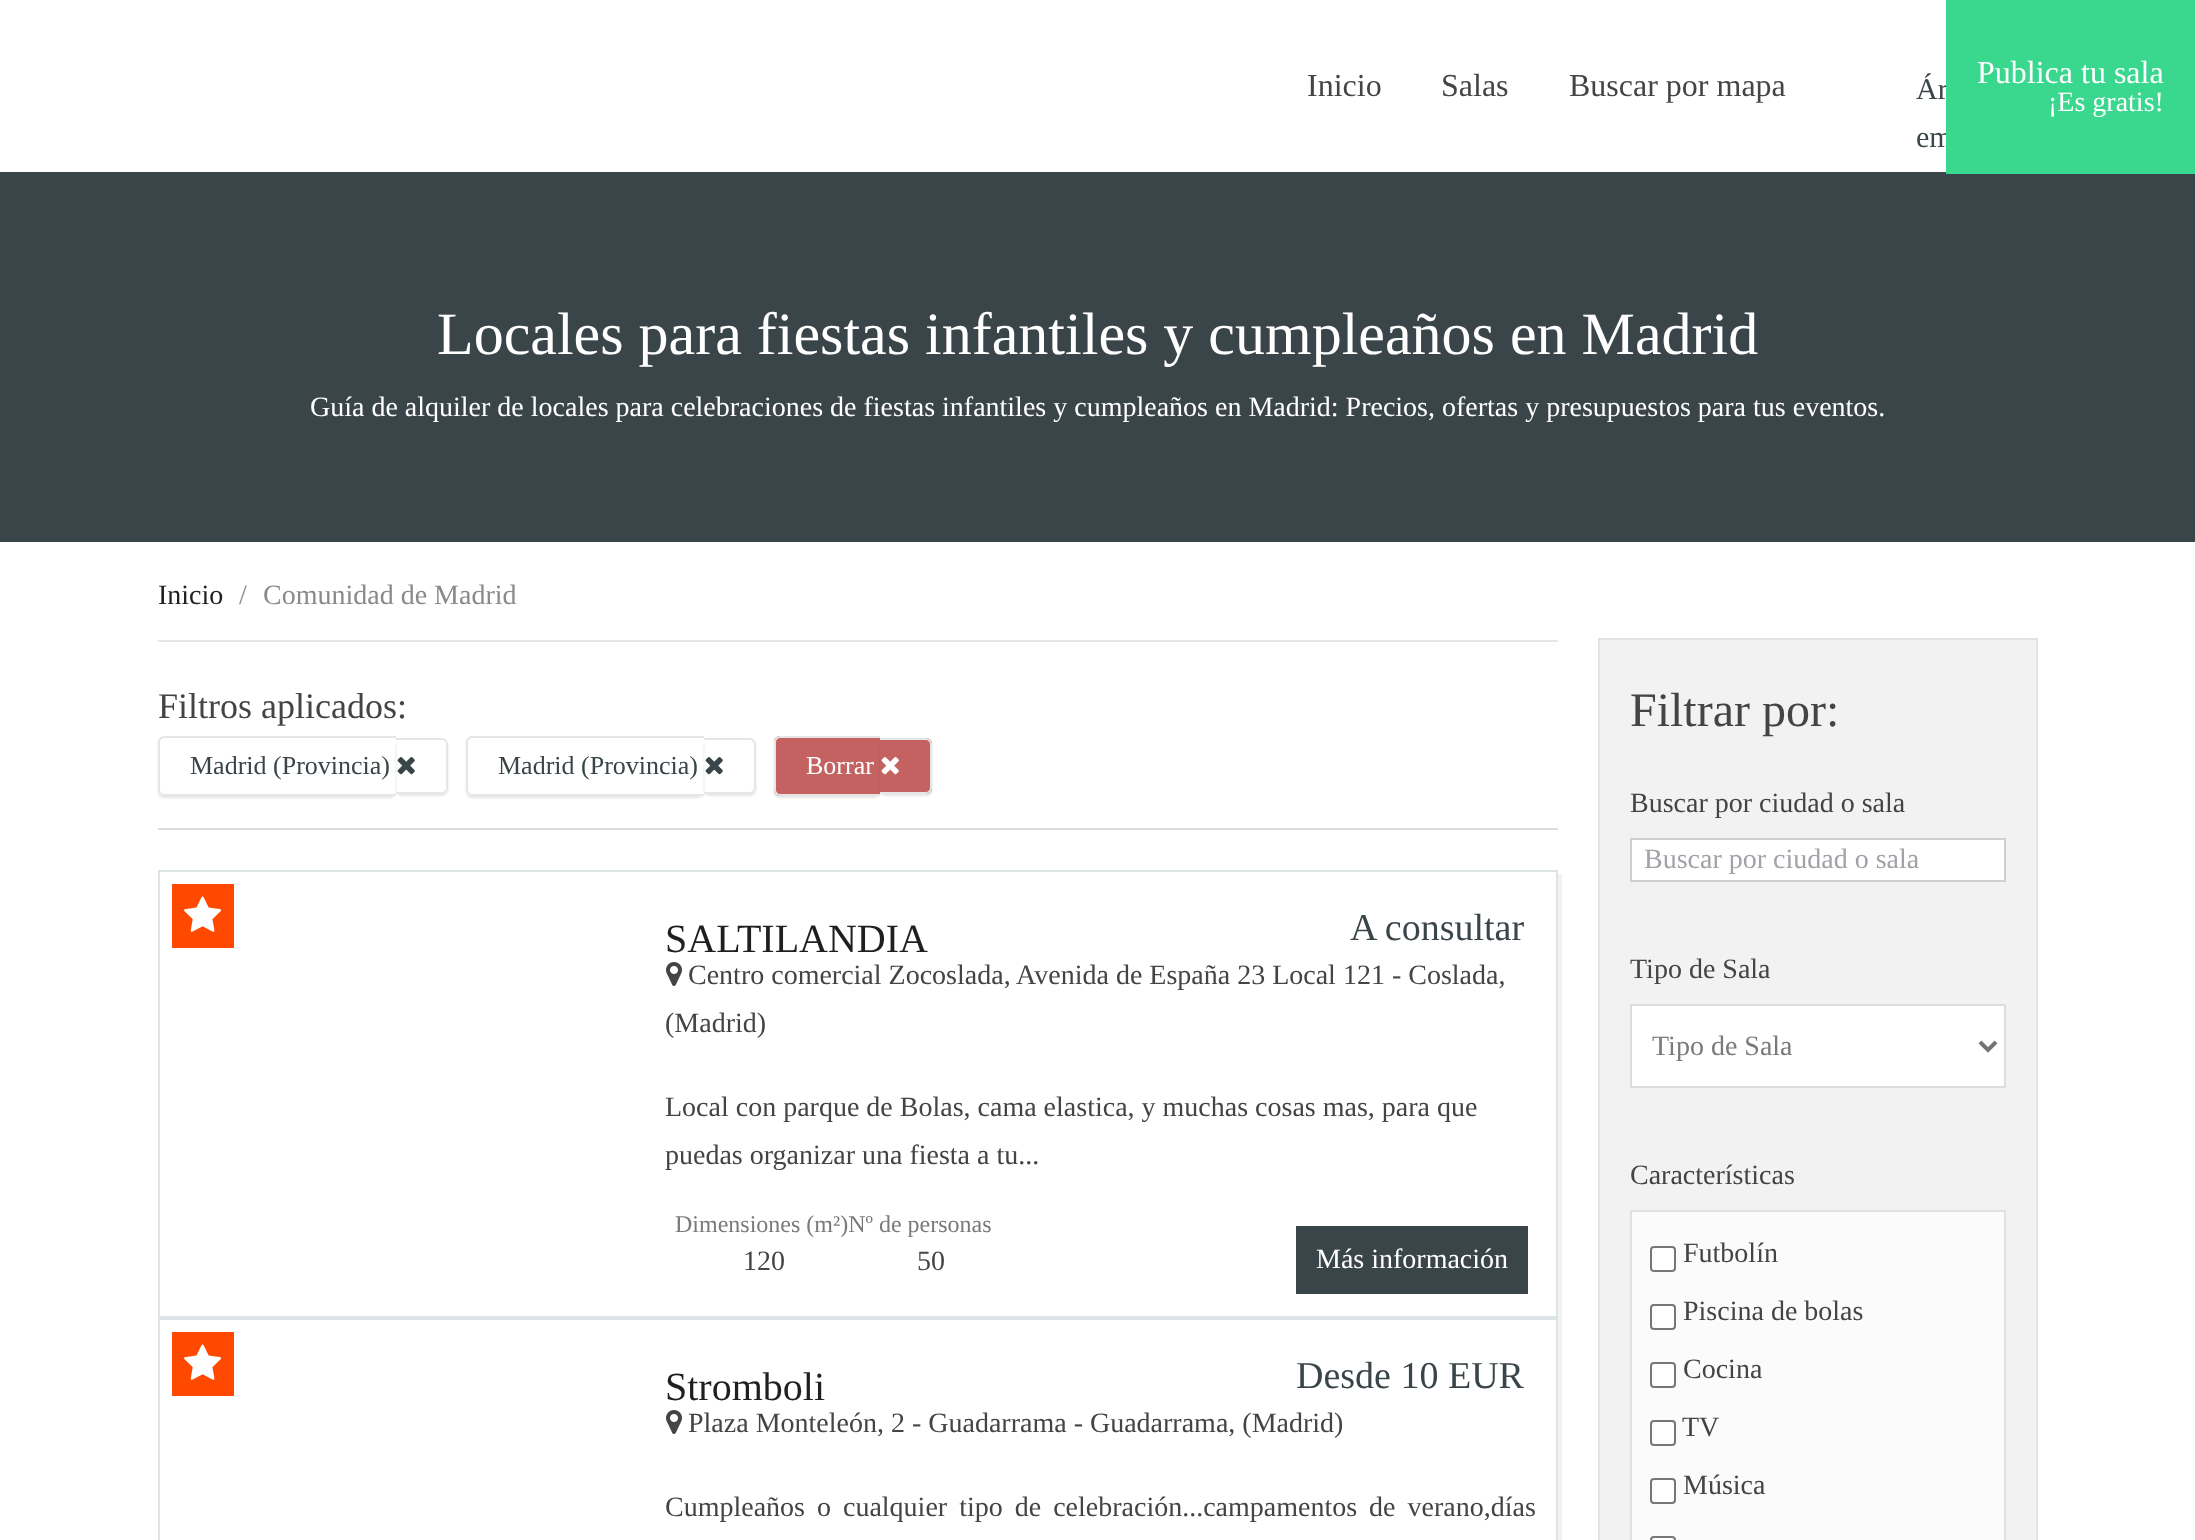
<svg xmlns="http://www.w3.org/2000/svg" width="2195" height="1540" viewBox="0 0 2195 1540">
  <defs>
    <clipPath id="clip1"><path d="M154 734H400V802H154ZM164 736H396V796H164C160.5 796 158 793.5 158 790V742C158 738.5 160.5 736 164 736Z" clip-rule="evenodd"/></clipPath>
    <clipPath id="clip2"><path d="M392 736H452V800H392ZM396 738H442C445.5 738 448 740.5 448 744V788C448 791.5 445.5 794 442 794H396Z" clip-rule="evenodd"/></clipPath>
    <clipPath id="clip3"><path d="M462 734H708V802H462ZM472 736H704V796H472C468.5 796 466 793.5 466 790V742C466 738.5 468.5 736 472 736Z" clip-rule="evenodd"/></clipPath>
    <clipPath id="clip4"><path d="M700 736H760V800H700ZM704 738H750C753.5 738 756 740.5 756 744V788C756 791.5 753.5 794 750 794H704Z" clip-rule="evenodd"/></clipPath>
  </defs>
  <rect width="100%" height="100%" fill="rgb(255,255,255)"/>
  <g font-family="Liberation Serif" font-size="32" fill="rgb(68,68,68)">
    <text x="1307" y="96">Inicio</text>
    <text x="1441" y="96">Salas</text>
    <text x="1569" y="96">Buscar por mapa</text>
  </g>
  <g font-family="Liberation Serif" font-size="30" fill="rgb(58,69,73)">
    <text>
      <tspan x="1916" y="99">Ár</tspan>
      <tspan x="1916" y="147">em</tspan>
    </text>
  </g>
  <rect x="0" y="172" width="2195" height="370" fill="rgb(58,69,73)"/>
  <rect x="1946" y="0" width="249" height="174" fill="rgb(58,216,143)"/>
  <text x="1977" y="83" font-family="Liberation Serif" font-size="32" fill="rgb(255,255,255)">Publica tu sala</text>
  <text x="2048" y="111" font-family="Liberation Serif" font-size="28" fill="rgb(255,255,255)">¡Es gratis!</text>
  <text x="437" y="354" font-family="Liberation Serif" font-size="60" fill="rgb(255,255,255)">Locales para fiestas infantiles y cumpleaños en Madrid</text>
  <text x="310" y="416" font-family="Liberation Serif" font-size="28" fill="rgb(255,255,255)">Guía de alquiler de locales para celebraciones de fiestas infantiles y cumpleaños en Madrid: Precios, ofertas y presupuestos para tus eventos.</text>
  <rect x="158" y="640" width="1400" height="2" fill="rgb(230,230,230)"/>
  <text x="158" y="604" font-family="Liberation Serif" font-size="28" fill="rgb(31,30,32)">Inicio</text>
  <g font-family="Liberation Serif" font-size="28" fill="rgb(138,138,138)">
    <text x="239" y="604">/</text>
    <text x="263" y="604">Comunidad de Madrid</text>
  </g>
  <text x="158" y="718" font-family="Liberation Serif" font-size="36" fill="rgb(68,68,68)">Filtros aplicados:</text>
  <g clip-path="url(#clip1)">
    <rect x="158" y="738" width="238" height="60" rx="6" fill="rgba(0,0,0,0.1)" filter="blur(1px)"/>
  </g>
  <path d="M164 736H396V796H164C161 796 158 793 158 790V742C158 739 161 736 164 736ZM164 738H396V794H164C162 794 160 792 160 790V742C160 740 162 738 164 738Z" fill="rgb(230,230,230)" fill-rule="evenodd"/>
  <g clip-path="url(#clip2)">
    <rect x="396" y="740" width="52" height="56" rx="6" fill="rgba(0,0,0,0.1)" filter="blur(1px)"/>
  </g>
  <path d="M396 738H442C445 738 448 741 448 744V788C448 791 445 794 442 794H396ZM396 740H442C444 740 446 742 446 744V788C446 790 444 792 442 792H396Z" fill="rgb(230,230,230)" fill-rule="evenodd"/>
  <text x="190" y="774" font-family="Liberation Serif" font-size="26" fill="rgb(58,69,73)">Madrid (Provincia)</text>
  <image x="397" y="757" width="18" height="18" href="pic1.png"/>
  <g clip-path="url(#clip3)">
    <rect x="466" y="738" width="238" height="60" rx="6" fill="rgba(0,0,0,0.1)" filter="blur(1px)"/>
  </g>
  <path d="M472 736H704V796H472C469 796 466 793 466 790V742C466 739 469 736 472 736ZM472 738H704V794H472C470 794 468 792 468 790V742C468 740 470 738 472 738Z" fill="rgb(230,230,230)" fill-rule="evenodd"/>
  <g clip-path="url(#clip4)">
    <rect x="704" y="740" width="52" height="56" rx="6" fill="rgba(0,0,0,0.1)" filter="blur(1px)"/>
  </g>
  <path d="M704 738H750C753 738 756 741 756 744V788C756 791 753 794 750 794H704ZM704 740H750C752 740 754 742 754 744V788C754 790 752 792 750 792H704Z" fill="rgb(230,230,230)" fill-rule="evenodd"/>
  <text x="498" y="774" font-family="Liberation Serif" font-size="26" fill="rgb(58,69,73)">Madrid (Provincia)</text>
  <image x="705" y="757" width="18" height="18" href="pic1.png"/>
  <rect x="774" y="738" width="106" height="60" rx="6" fill="rgba(0,0,0,0.1)" filter="blur(1px)"/>
  <path d="M780 736H880V796H780C776.5 796 774 793.5 774 790V742C774 738.5 776.5 736 780 736Z" fill="rgb(196,98,98)"/>
  <path d="M780 736H880V796H780C777 796 774 793 774 790V742C774 739 777 736 780 736ZM780 738H880V794H780C778 794 776 792 776 790V742C776 740 778 738 780 738Z" fill="rgb(230,230,230)" fill-rule="evenodd"/>
  <rect x="880" y="740" width="52" height="56" rx="6" fill="rgba(0,0,0,0.1)" filter="blur(1px)"/>
  <path d="M880 738H926C929.5 738 932 740.5 932 744V788C932 791.5 929.5 794 926 794H880Z" fill="rgb(196,98,98)"/>
  <path d="M880 738H926C929 738 932 741 932 744V788C932 791 929 794 926 794H880ZM880 740H926C928 740 930 742 930 744V788C930 790 928 792 926 792H880Z" fill="rgb(230,230,230)" fill-rule="evenodd"/>
  <text x="806" y="774" font-family="Liberation Serif" font-size="26" fill="rgb(255,255,255)">Borrar</text>
  <image x="881" y="757" width="18" height="18" href="pic2.png"/>
  <rect x="158" y="828" width="1400" height="2" fill="rgb(221,221,221)"/>
  <path d="M162 1318V1322H1562V874H1558V1318Z" fill="rgb(242,242,242)"/>
  <rect x="159" y="871" width="1398" height="446" fill="none" stroke="rgb(221,228,230)" stroke-width="2"/>
  <rect x="172" y="884" width="62" height="64" fill="rgb(255,72,0)"/>
  <image x="184" y="896" width="38" height="36" href="pic3.png"/>
  <text x="665" y="952" font-family="Liberation Serif" font-size="40" fill="rgb(31,30,32)">SALTILANDIA</text>
  <text x="1350" y="940" font-family="Liberation Serif" font-size="38" fill="rgb(58,69,73)">A consultar</text>
  <image x="666" y="962" width="16" height="24" href="pic4.png"/>
  <g font-family="Liberation Serif" font-size="28" fill="rgb(68,68,68)">
    <text x="688" y="984">Centro comercial Zocoslada, Avenida de España 23 Local 121 - Coslada,</text>
    <text x="665" y="1032">(Madrid)</text>
    <text>
      <tspan x="665" y="1116">Local con parque de Bolas, cama elastica, y muchas cosas mas, para que</tspan>
      <tspan x="665" y="1164">puedas organizar una fiesta a tu...</tspan>
    </text>
  </g>
  <text x="675" y="1232" font-family="Liberation Serif" font-size="24" fill="rgb(122,122,122)">Dimensiones (m²)Nº de personas</text>
  <g font-family="Liberation Serif" font-size="28" fill="rgb(68,68,68)">
    <text x="743" y="1270">120</text>
    <text x="917" y="1270">50</text>
  </g>
  <rect x="1296" y="1226" width="232" height="68" fill="rgb(58,69,73)"/>
  <text x="1316" y="1268" font-family="Liberation Serif" font-size="28" fill="rgb(255,255,255)">Más información</text>
  <rect x="162" y="1320" width="1394" height="2" fill="rgb(255,255,255)"/>
  <rect x="159" y="1319" width="1398" height="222" fill="none" stroke="rgb(221,228,230)" stroke-width="2"/>
  <rect x="172" y="1332" width="62" height="64" fill="rgb(255,72,0)"/>
  <image x="184" y="1344" width="38" height="36" href="pic3.png"/>
  <path d="M162 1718V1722H1562V1322H1558V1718Z" fill="rgb(242,242,242)"/>
  <text x="665" y="1400" font-family="Liberation Serif" font-size="40" fill="rgb(31,30,32)">Stromboli</text>
  <text x="1296" y="1388" font-family="Liberation Serif" font-size="38" fill="rgb(58,69,73)">Desde 10 EUR</text>
  <image x="666" y="1410" width="16" height="24" href="pic4.png"/>
  <g font-family="Liberation Serif" font-size="28" fill="rgb(68,68,68)">
    <text x="688" y="1432">Plaza Monteleón, 2 - Guadarrama - Guadarrama, (Madrid)</text>
    <text x="665" y="1516" word-spacing="5">Cumpleaños o cualquier tipo de celebración...campamentos de verano,días</text>
  </g>
  <rect x="1599" y="639" width="438" height="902" fill="rgb(242,242,242)" stroke="rgb(227,227,227)" stroke-width="2"/>
  <text x="1630" y="726" font-family="Liberation Serif" font-size="48" fill="rgb(68,68,68)">Filtrar por:</text>
  <text x="1630" y="812" font-family="Liberation Serif" font-size="28" fill="rgb(68,68,68)">Buscar por ciudad o sala</text>
  <rect x="1631" y="839" width="374" height="42" fill="rgb(255,255,255)" stroke="rgb(207,207,207)" stroke-width="2"/>
  <text x="1644" y="868" font-family="Liberation Serif" font-size="28" fill="rgb(160,163,167)">Buscar por ciudad o sala</text>
  <text x="1630" y="978" font-family="Liberation Serif" font-size="28" fill="rgb(68,68,68)">Tipo de Sala</text>
  <rect x="1631" y="1005" width="374" height="82" fill="rgb(255,255,255)" stroke="rgb(221,221,221)" stroke-width="2"/>
  <path d="M1980 1042L1988 1050L1996 1042" fill="none" stroke="rgb(118,117,117)" stroke-width="4"/>
  <text x="1652" y="1055" font-family="Liberation Serif" font-size="28" fill="rgb(122,122,122)">Tipo de Sala</text>
  <text x="1630" y="1184" font-family="Liberation Serif" font-size="28" fill="rgb(68,68,68)">Características</text>
  <rect x="1631" y="1211" width="374" height="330" fill="rgb(252,251,251)" stroke="rgb(225,225,225)" stroke-width="2"/>
  <rect x="1651" y="1247" width="24" height="24" rx="3" fill="rgb(255,255,255)" stroke="rgb(118,118,118)" stroke-width="2"/>
  <text x="1683" y="1262" font-family="Liberation Serif" font-size="28" fill="rgb(68,68,68)">Futbolín</text>
  <rect x="1651" y="1305" width="24" height="24" rx="3" fill="rgb(255,255,255)" stroke="rgb(118,118,118)" stroke-width="2"/>
  <text x="1683" y="1320" font-family="Liberation Serif" font-size="28" fill="rgb(68,68,68)">Piscina de bolas</text>
  <rect x="1651" y="1363" width="24" height="24" rx="3" fill="rgb(255,255,255)" stroke="rgb(118,118,118)" stroke-width="2"/>
  <text x="1683" y="1378" font-family="Liberation Serif" font-size="28" fill="rgb(68,68,68)">Cocina</text>
  <rect x="1651" y="1421" width="24" height="24" rx="3" fill="rgb(255,255,255)" stroke="rgb(118,118,118)" stroke-width="2"/>
  <text x="1682" y="1436" font-family="Liberation Serif" font-size="28" fill="rgb(68,68,68)">TV</text>
  <rect x="1651" y="1479" width="24" height="24" rx="3" fill="rgb(255,255,255)" stroke="rgb(118,118,118)" stroke-width="2"/>
  <text x="1683" y="1494" font-family="Liberation Serif" font-size="28" fill="rgb(68,68,68)">Música</text>
  <rect x="1651" y="1537" width="24" height="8" rx="3" fill="rgb(255,255,255)" stroke="rgb(118,118,118)" stroke-width="2"/>
</svg>
